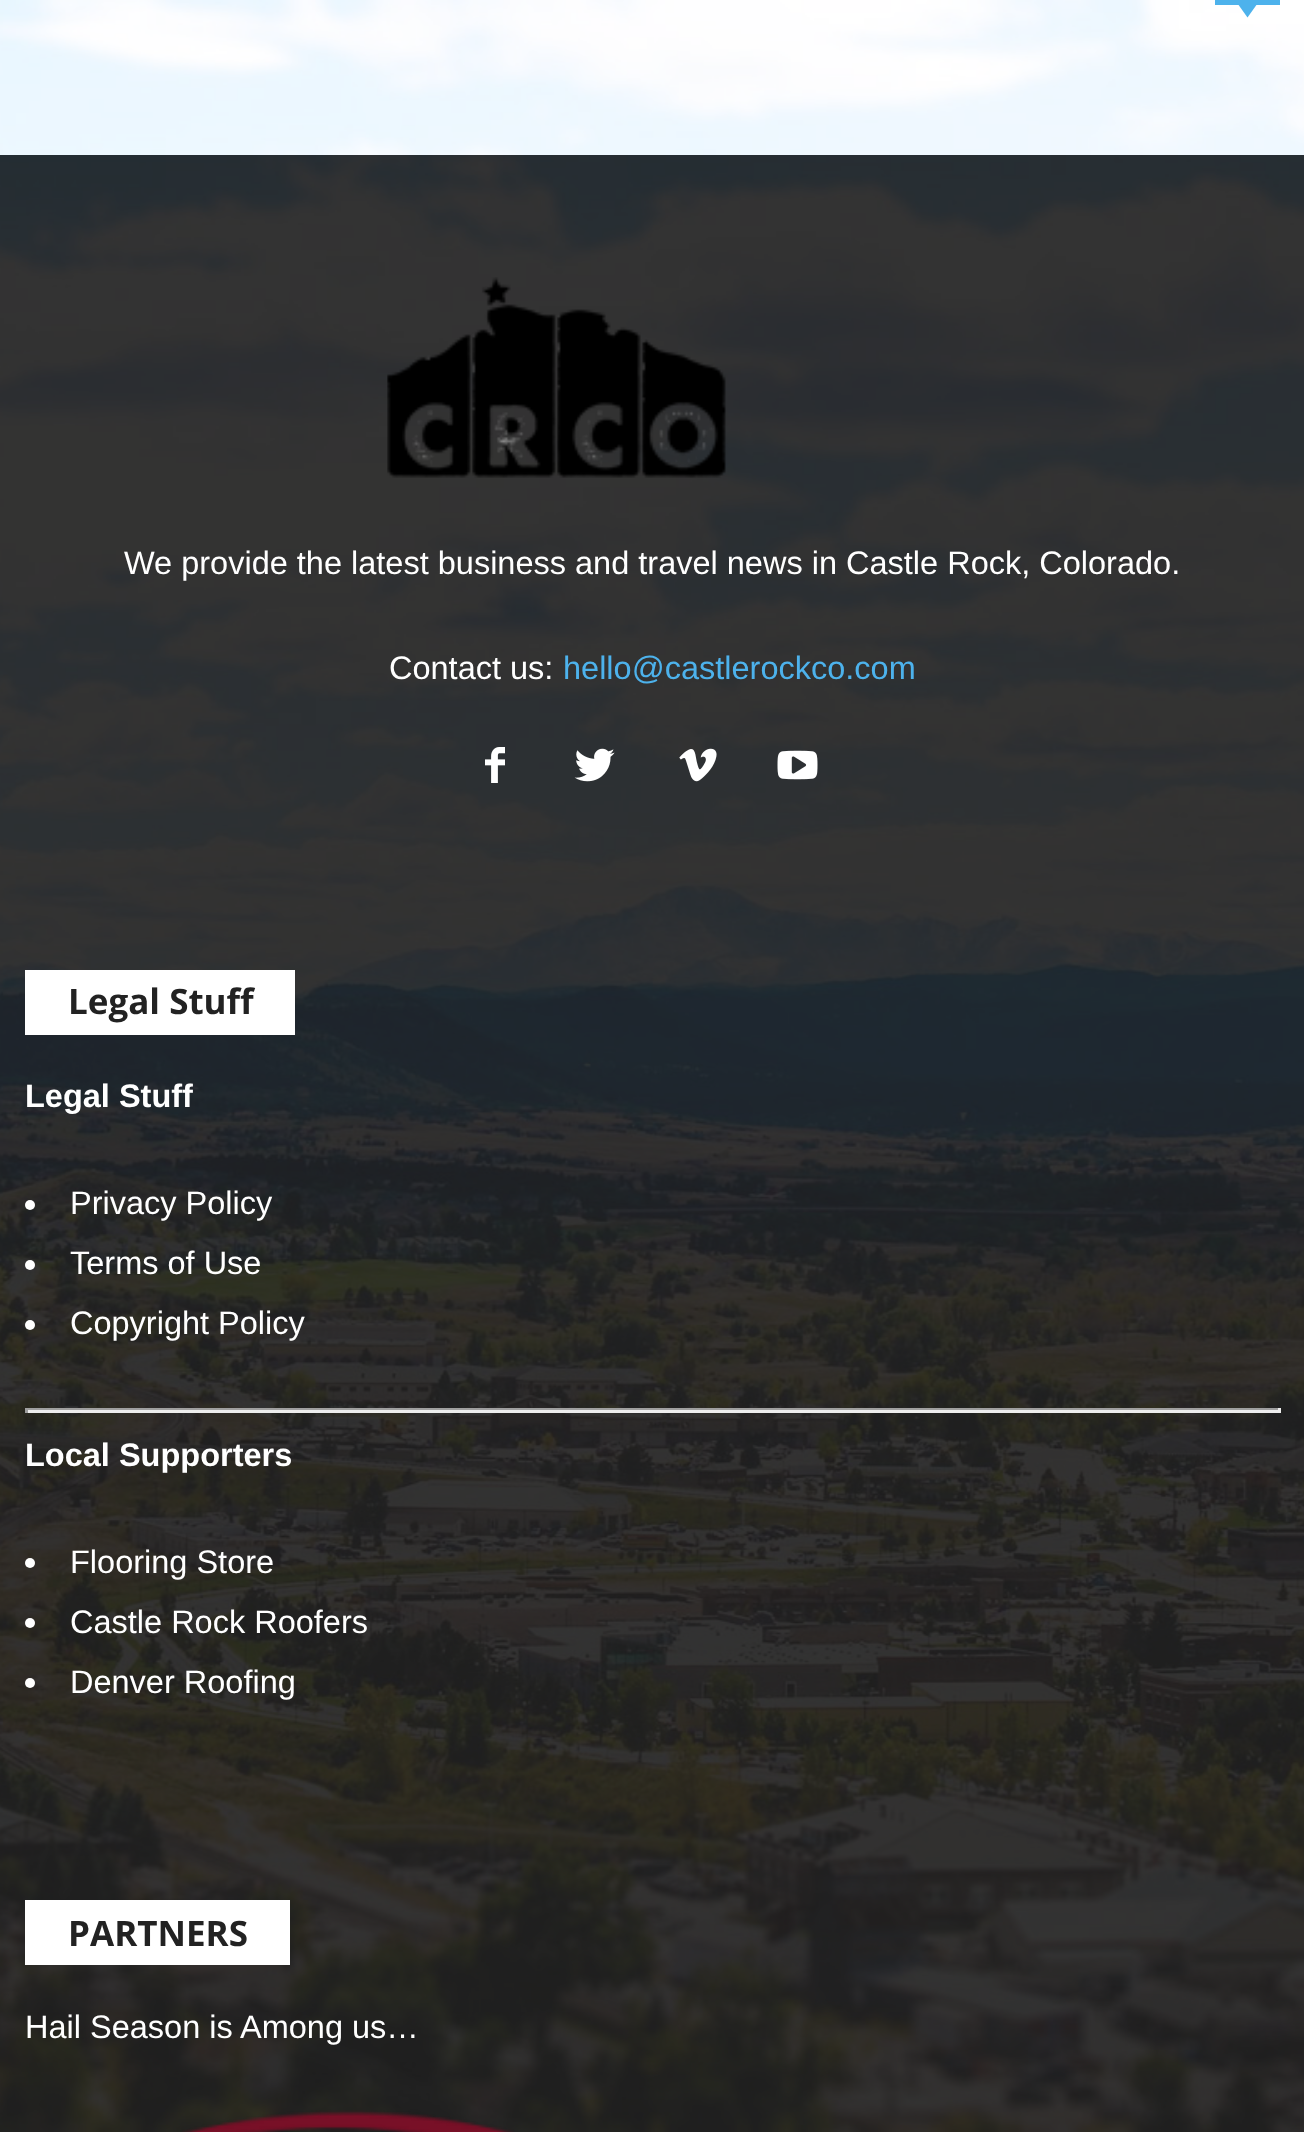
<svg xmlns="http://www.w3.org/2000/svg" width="1304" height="2132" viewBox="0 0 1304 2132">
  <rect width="100%" height="100%" fill="rgb(255,255,255)"/>
  <image x="0" y="0" width="1304" height="2132" href="pic1.png"/>
  <rect x="0" y="0" width="1304" height="155" fill="rgba(255,255,255,0.75)"/>
  <rect x="1215" y="0" width="65" height="5" fill="rgb(77,178,236)"/>
  <path d="M1235 0H1260L1247.5 17.5Z" fill="rgb(77,178,236)"/>
  <image x="387" y="277" width="339" height="201" href="pic2.png"/>
  <g font-family="Liberation Sans" font-size="32.5" fill="rgb(255,255,255)">
    <text x="124" y="574">We provide the latest business and travel news in Castle Rock, Colorado.</text>
    <text x="389" y="679">Contact us:</text>
  </g>
  <text x="563" y="679" font-family="Liberation Sans" font-size="32.5" fill="rgb(77,178,236)">hello@castlerockco.com</text>
  <image x="485" y="747" width="20" height="36" href="pic3.png"/>
  <image x="574" y="748" width="41" height="34" href="pic4.png"/>
  <image x="679" y="748" width="38" height="34" href="pic5.png"/>
  <image x="777" y="750" width="41" height="30" href="pic6.png"/>
  <rect x="25" y="970" width="270" height="65" fill="rgb(255,255,255)"/>
  <text x="68" y="1014" font-family="Open Sans" font-size="35" font-weight="bold" fill="rgb(34,34,34)">Legal Stuff</text>
  <text x="25" y="1107" font-family="Liberation Sans" font-size="32.5" font-weight="bold" fill="rgb(255,255,255)">Legal Stuff</text>
  <circle cx="30" cy="1205" r="5" fill="rgb(255,255,255)"/>
  <text x="70" y="1214" font-family="Liberation Sans" font-size="32.5" fill="rgb(255,255,255)">Privacy Policy</text>
  <circle cx="30" cy="1265" r="5" fill="rgb(255,255,255)"/>
  <text x="70" y="1274" font-family="Liberation Sans" font-size="32.5" fill="rgb(255,255,255)">Terms of Use</text>
  <circle cx="30" cy="1325" r="5" fill="rgb(255,255,255)"/>
  <text x="70" y="1334" font-family="Liberation Sans" font-size="32.5" fill="rgb(255,255,255)">Copyright Policy</text>
  <rect x="25" y="1408" width="1255" height="2" fill="rgb(159,159,159)"/>
  <rect x="1278" y="1408" width="3" height="5" fill="rgb(238,238,238)"/>
  <rect x="25" y="1410" width="1255" height="3" fill="rgb(238,238,238)"/>
  <rect x="25" y="1408" width="3" height="5" fill="rgb(159,159,159)"/>
  <text x="25" y="1466" font-family="Liberation Sans" font-size="32.5" font-weight="bold" fill="rgb(255,255,255)">Local Supporters</text>
  <circle cx="30" cy="1563" r="5" fill="rgb(255,255,255)"/>
  <text x="70" y="1573" font-family="Liberation Sans" font-size="32.5" fill="rgb(255,255,255)">Flooring Store</text>
  <circle cx="30" cy="1623" r="5" fill="rgb(255,255,255)"/>
  <text x="70" y="1633" font-family="Liberation Sans" font-size="32.5" fill="rgb(255,255,255)">Castle Rock Roofers</text>
  <circle cx="30" cy="1683" r="5" fill="rgb(255,255,255)"/>
  <text x="70" y="1693" font-family="Liberation Sans" font-size="32.5" fill="rgb(255,255,255)">Denver Roofing</text>
  <rect x="25" y="1900" width="265" height="65" fill="rgb(255,255,255)"/>
  <text x="68" y="1946" font-family="Open Sans" font-size="35" font-weight="bold" fill="rgb(34,34,34)">PARTNERS</text>
  <text x="25" y="2038" font-family="Liberation Sans" font-size="32.5" fill="rgb(255,255,255)">Hail Season is Among us…</text>
  <image x="182" y="2110" width="332" height="22" href="pic7.png"/>
</svg>
